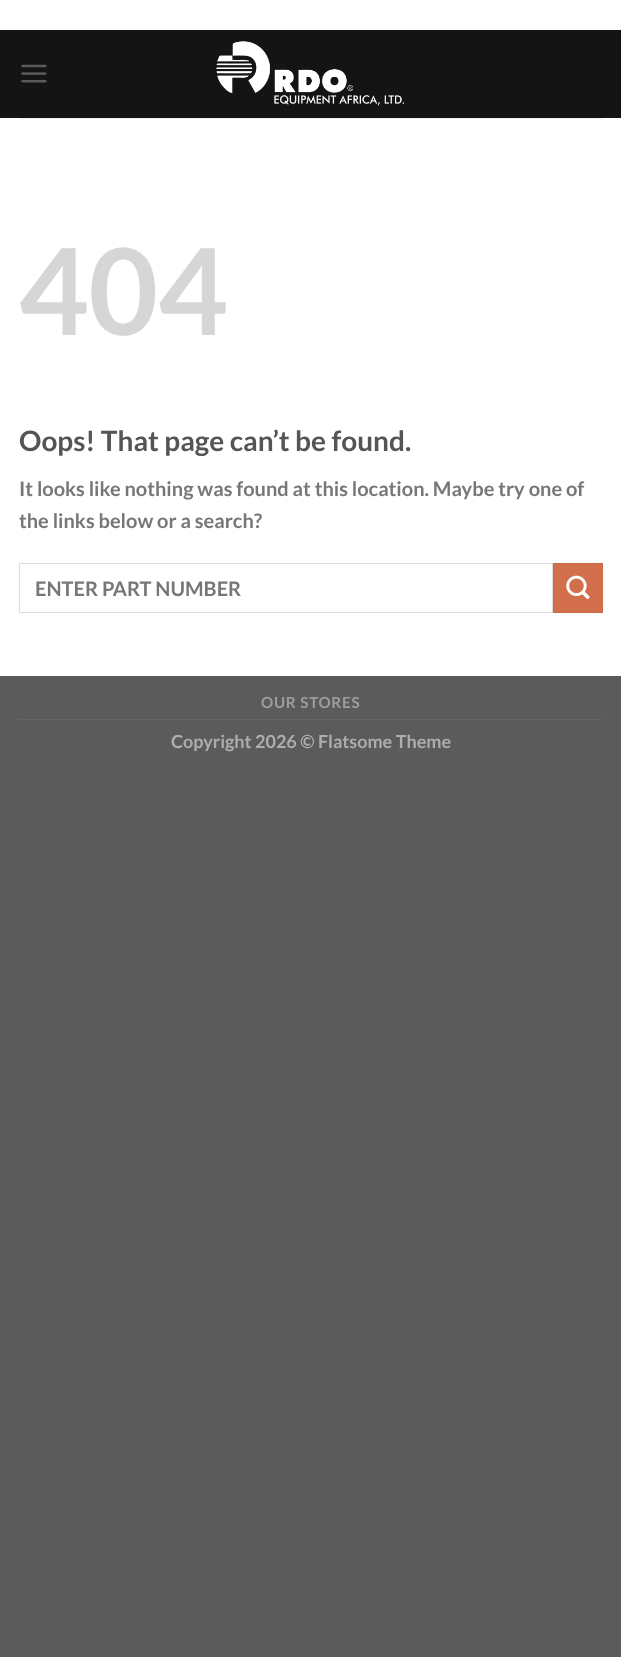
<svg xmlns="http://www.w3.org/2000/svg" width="621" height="1657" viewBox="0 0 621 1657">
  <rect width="100%" height="100%" fill="rgb(91,91,91)"/>
  <rect x="0" y="118" width="621" height="558" fill="rgb(255,255,255)"/>
  <rect x="0" y="0" width="621" height="30" fill="rgb(255,255,255)"/>
  <rect x="0" y="30" width="621" height="88" fill="rgb(20,20,20)"/>
  <image x="21" y="64" width="26" height="19" href="pic1.png"/>
  <image x="216" y="41" width="188" height="65" href="pic2.png"/>
  <rect x="19" y="118" width="584" height="1" fill="rgb(241,241,241)"/>
  <text x="19" y="335" font-family="Lato" font-size="120" font-weight="bold" fill="rgb(214,214,214)">404</text>
  <text x="19" y="451" font-family="Lato" font-size="28" font-weight="bold" fill="rgb(85,85,85)">Oops! That page can’t be found.</text>
  <g font-family="Lato" font-size="20" font-weight="bold" fill="rgb(119,119,119)">
    <text>
      <tspan x="19" y="496">It looks like nothing was found at this location. Maybe try one of</tspan>
      <tspan x="19" y="528">the links below or a search?</tspan>
    </text>
  </g>
  <rect x="19.5" y="563.5" width="533" height="49" fill="none" stroke="rgb(221,221,221)"/>
  <text x="35" y="596" font-family="Lato" font-size="20" font-weight="bold" fill="rgb(119,119,119)">ENTER PART NUMBER</text>
  <rect x="553.5" y="563.5" width="49" height="49" fill="rgb(210,110,75)" stroke="rgb(200,105,71)"/>
  <image x="566" y="575" width="24" height="24" href="pic3.png"/>
  <rect x="19" y="719" width="584" height="1" fill="rgb(101,101,101)"/>
  <text x="261" y="708" font-family="Lato" font-size="15.25" font-weight="bold" letter-spacing="0.75" fill="rgb(157,157,157)">OUR STORES</text>
  <text x="171" y="748" font-family="Lato" font-size="18" font-weight="bold" fill="rgb(173,173,173)">Copyright 2026 © Flatsome Theme</text>
</svg>
